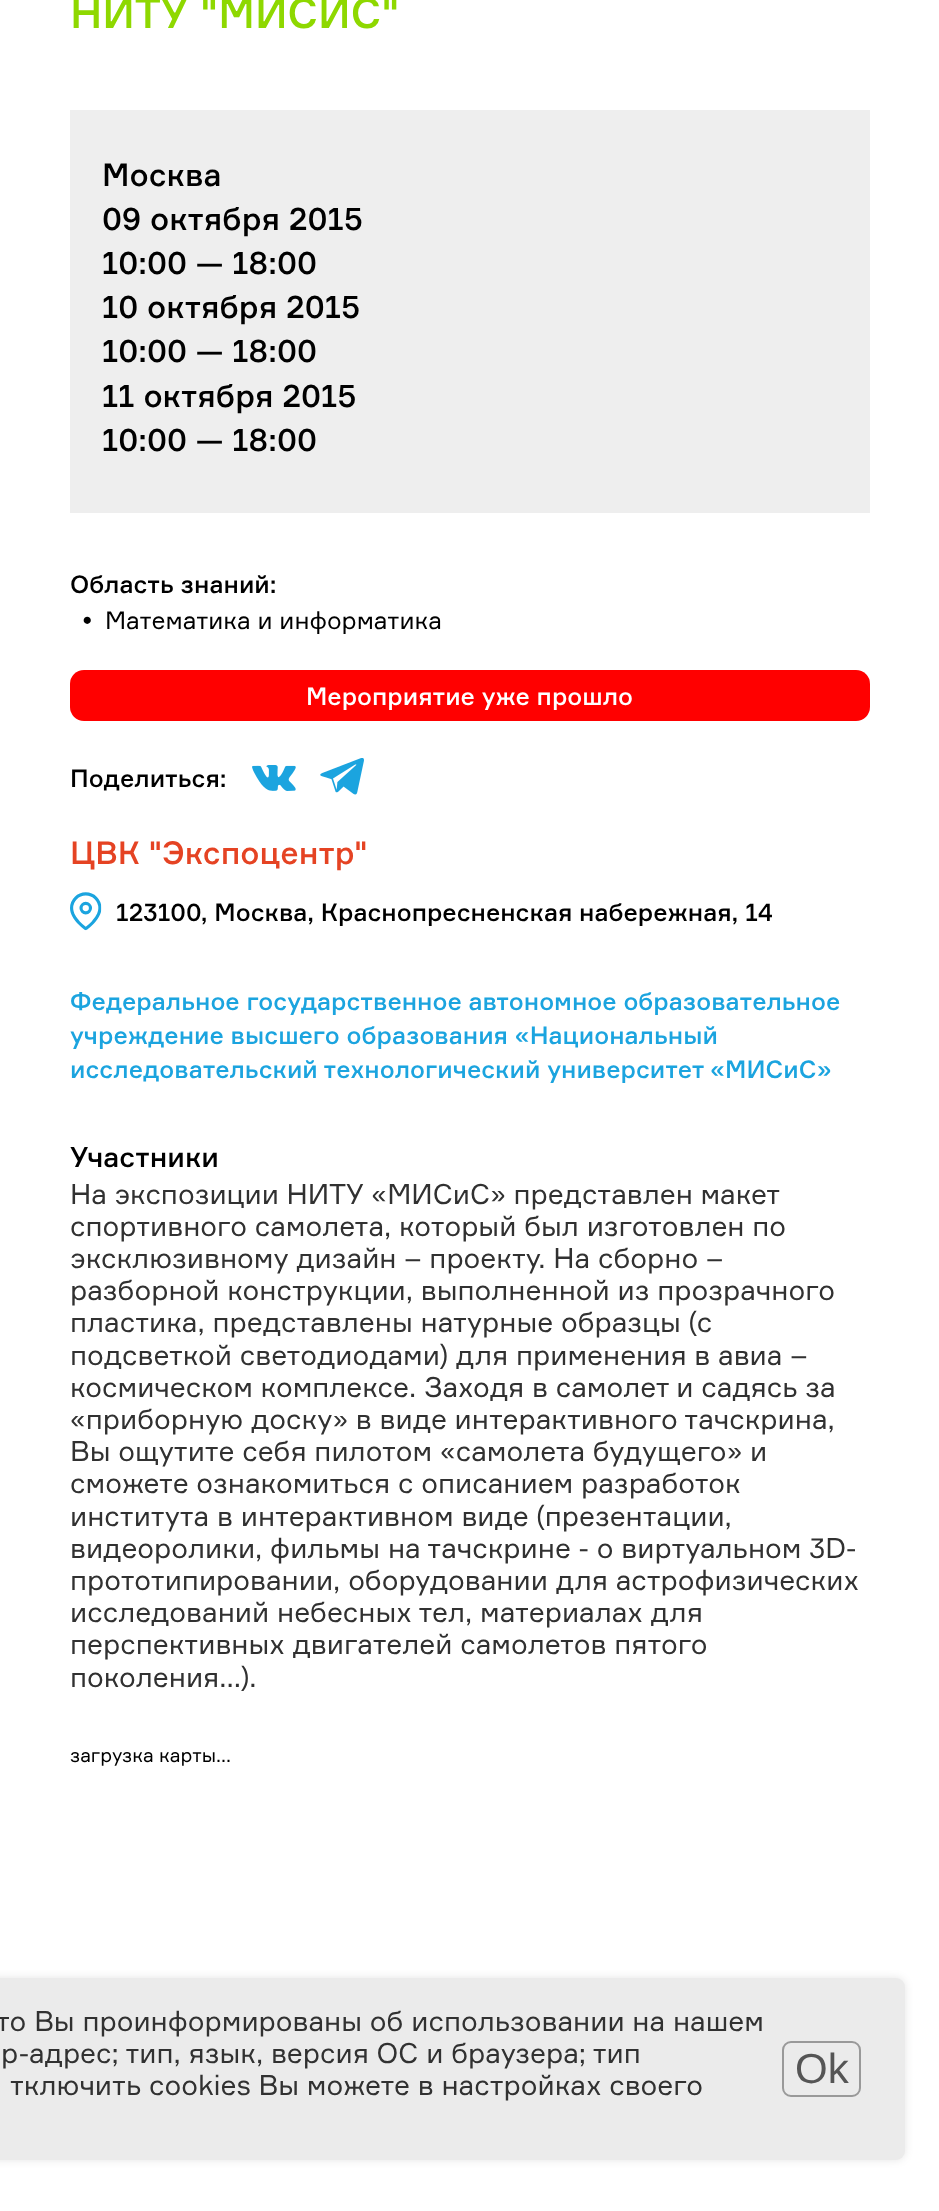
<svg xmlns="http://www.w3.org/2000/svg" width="939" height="2211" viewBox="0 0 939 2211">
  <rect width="100%" height="100%" fill="rgb(255,255,255)"/>
  <text x="70" y="28" font-family="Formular" font-size="42" font-weight="500" fill="rgb(142,216,0)">НИТУ "МИСИС"</text>
  <rect x="70" y="110" width="800" height="403" fill="rgb(238,238,238)"/>
  <g font-family="Formular" font-size="31.5" font-weight="500" fill="rgb(0,0,0)">
    <text>
      <tspan x="102" y="186">Москва</tspan>
      <tspan x="102" y="230">09 октября 2015</tspan>
      <tspan x="102" y="274">10:00 — 18:00</tspan>
      <tspan x="102" y="318">10 октября 2015</tspan>
      <tspan x="102" y="362">10:00 — 18:00</tspan>
      <tspan x="102" y="407">11 октября 2015</tspan>
      <tspan x="102" y="451">10:00 — 18:00</tspan>
    </text>
  </g>
  <text x="70" y="593" font-family="Formular" font-size="24.5" font-weight="500" fill="rgb(0,0,0)">Область знаний:</text>
  <g font-family="Formular" font-size="24.5" fill="rgb(0,0,0)">
    <text x="82" y="629">•</text>
    <text x="105" y="629">Математика и информатика</text>
  </g>
  <rect x="70" y="670" width="800" height="51" rx="14" fill="rgb(255,0,0)"/>
  <text x="306" y="705" font-family="Formular" font-size="24.5" font-weight="500" fill="rgb(255,255,255)">Мероприятие уже прошло</text>
  <text x="70" y="787" font-family="Formular" font-size="24.5" font-weight="500" fill="rgb(0,0,0)">Поделиться:</text>
  <image x="252" y="765" width="44" height="26" href="pic1.png"/>
  <image x="320" y="758" width="44" height="37" href="pic2.png"/>
  <text x="70" y="864" font-family="Formular" font-size="31.5" font-weight="500" fill="rgb(229,67,35)">ЦВК "Экспоцентр"</text>
  <image x="70" y="892" width="32" height="39" href="pic3.png"/>
  <text x="116" y="921" font-family="Formular" font-size="24.5" font-weight="500" fill="rgb(0,0,0)">123100, Москва, Краснопресненская набережная, 14</text>
  <g font-family="Formular" font-size="24.5" font-weight="500" fill="rgb(27,164,223)">
    <text>
      <tspan x="70" y="1010">Федеральное государственное автономное образовательное</tspan>
      <tspan x="70" y="1044">учреждение высшего образования «Национальный</tspan>
      <tspan x="70" y="1078">исследовательский технологический университет «МИСиС»</tspan>
    </text>
  </g>
  <text x="70" y="1167" font-family="Formular" font-size="28" font-weight="500" fill="rgb(0,0,0)">Участники</text>
  <g font-family="Formular" font-size="28" fill="rgb(49,49,49)">
    <text>
      <tspan x="70" y="1204" word-spacing="-0.25">На экспозиции НИТУ «МИСиС» представлен макет</tspan>
      <tspan x="70" y="1236">спортивного самолета, который был изготовлен по</tspan>
      <tspan x="70" y="1268">эксклюзивному дизайн – проекту. На сборно –</tspan>
      <tspan x="70" y="1300">разборной конструкции, выполненной из прозрачного</tspan>
      <tspan x="70" y="1332">пластика, представлены натурные образцы (с</tspan>
      <tspan x="70" y="1365">подсветкой светодиодами) для применения в авиа –</tspan>
      <tspan x="70" y="1397">космическом комплексе. Заходя в самолет и садясь за</tspan>
      <tspan x="70" y="1429">«приборную доску» в виде интерактивного тачскрина,</tspan>
      <tspan x="70" y="1461">Вы ощутите себя пилотом «самолета будущего» и</tspan>
      <tspan x="70" y="1493">сможете ознакомиться с описанием разработок</tspan>
      <tspan x="70" y="1526">института в интерактивном виде (презентации,</tspan>
      <tspan x="70" y="1558">видеоролики, фильмы на тачскрине - о виртуальном 3D-</tspan>
      <tspan x="70" y="1590">прототипировании, оборудовании для астрофизических</tspan>
      <tspan x="70" y="1622">исследований небесных тел, материалах для</tspan>
      <tspan x="70" y="1654">перспективных двигателей самолетов пятого</tspan>
      <tspan x="70" y="1687">поколения...).</tspan>
    </text>
  </g>
  <text x="70" y="1762" font-family="Formular" font-size="19.25" fill="rgb(0,0,0)">загрузка карты...</text>
  <rect x="-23" y="1978" width="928" height="182" rx="9" fill="rgba(0,0,0,0.1)" filter="blur(4.5px)"/>
  <rect x="-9" y="1978" width="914" height="182" rx="9" fill="rgb(235,235,235)"/>
  <g font-family="Formular" font-size="28" fill="rgb(49,49,49)">
    <text x="-4" y="2031">то Вы проинформированы об использовании на нашем</text>
    <text x="1" y="2063">p-адрес; тип, язык, версия ОС и браузера; тип</text>
    <text x="10" y="2095">тключить cookies Вы можете в настройках своего</text>
  </g>
  <rect x="783" y="2042" width="77" height="54" rx="8" fill="none" stroke="rgb(153,153,153)" stroke-width="2"/>
  <text x="795" y="2083" font-family="Liberation Sans" font-size="42" fill="rgb(85,85,85)">Ok</text>
</svg>
